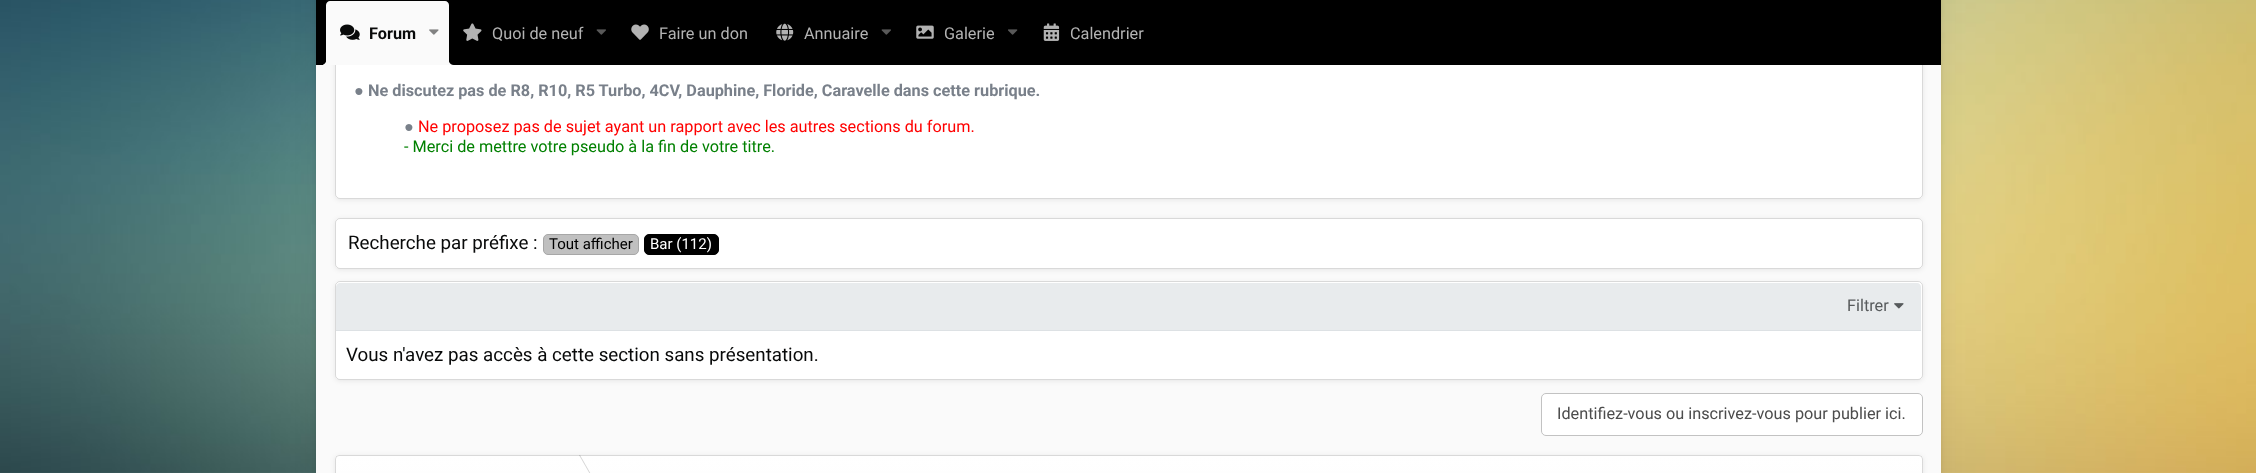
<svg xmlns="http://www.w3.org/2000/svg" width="2256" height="473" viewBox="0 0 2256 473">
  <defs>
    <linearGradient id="g1" gradientUnits="userSpaceOnUse" x1="1129" y1="455" x2="1129" y2="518"><stop offset="0" stop-color="rgb(255,255,255)"/><stop offset="1" stop-color="rgb(255,255,255)" stop-opacity="0"/></linearGradient>
  </defs>
  <rect width="100%" height="100%" fill="rgb(255,255,255)"/>
  <image x="0" y="0" width="2256" height="473" href="pic1.png"/>
  <rect x="316" y="-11" width="1625" height="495" rx="5" fill="rgba(0,0,0,0.08)" filter="blur(2px)"/>
  <rect x="316" y="-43" width="1625" height="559" rx="5" fill="rgba(0,0,0,0.06)" filter="blur(12.5px)"/>
  <rect x="316" y="65" width="1625" height="408" fill="rgb(250,250,250)"/>
  <rect x="335" y="6" width="1588" height="194" rx="5" fill="rgba(0,0,0,0.08)" filter="blur(2.5px)"/>
  <rect x="335" y="5" width="1588" height="194" rx="5" fill="rgb(255,255,255)"/>
  <rect x="335.5" y="5.5" width="1587" height="193" rx="4.5" fill="none" stroke="rgba(0,0,0,0.15)"/>
  <rect x="316" y="0" width="1625" height="65" fill="rgb(0,0,0)"/>
  <path d="M330 1H445C447 1 449 3 449 5V65H326V5C326 3 328 1 330 1Z" fill="rgb(250,250,250)"/>
  <image x="340" y="24" width="20" height="16" href="pic2.png"/>
  <text x="369" y="39" font-family="Roboto" font-size="16.25" font-weight="bold" fill="rgb(9,10,10)">Forum</text>
  <image x="429" y="29" width="10" height="6" href="pic3.png"/>
  <image x="323" y="61" width="3" height="4" href="pic4.png"/>
  <image x="449" y="61" width="5" height="4" href="pic5.png"/>
  <image x="463" y="23" width="19" height="18" href="pic6.png"/>
  <text x="492" y="39" font-family="Roboto" font-size="16.25" fill="rgb(179,179,179)">Quoi de neuf</text>
  <image x="596" y="29" width="10" height="6" href="pic7.png"/>
  <image x="631" y="24" width="18" height="16" href="pic8.png"/>
  <text x="659" y="39" font-family="Roboto" font-size="16.25" fill="rgb(179,179,179)">Faire un don</text>
  <image x="776" y="23" width="18" height="18" href="pic9.png"/>
  <text x="804" y="39" font-family="Roboto" font-size="16.25" fill="rgb(179,179,179)">Annuaire</text>
  <image x="881" y="29" width="10" height="6" href="pic7.png"/>
  <image x="916" y="25" width="18" height="14" href="pic10.png"/>
  <text x="944" y="39" font-family="Roboto" font-size="16.25" fill="rgb(179,179,179)">Galerie</text>
  <image x="1008" y="29" width="10" height="6" href="pic11.png"/>
  <image x="1043" y="23" width="17" height="18" href="pic12.png"/>
  <text x="1070" y="39" font-family="Roboto" font-size="16.25" fill="rgb(179,179,179)">Calendrier</text>
  <text x="354" y="96" font-family="Liberation Sans" font-size="16.25" font-weight="bold" fill="rgb(121,128,138)">●</text>
  <text x="368" y="96" font-family="Roboto" font-size="16.25" font-weight="bold" fill="rgb(121,128,138)">Ne discutez pas de R8, R10, R5 Turbo, 4CV, Dauphine, Floride, Caravelle dans cette rubrique.</text>
  <text x="404" y="132" font-family="Liberation Sans" font-size="16.25" fill="rgb(121,128,138)">●</text>
  <text x="418" y="132" font-family="Roboto" font-size="16.25" fill="rgb(255,0,0)">Ne proposez pas de sujet ayant un rapport avec les autres sections du forum.</text>
  <text x="404" y="152" font-family="Roboto" font-size="16.25" fill="rgb(0,128,0)">- Merci de mettre votre pseudo à la fin de votre titre.</text>
  <rect x="335" y="219" width="1588" height="51" rx="5" fill="rgba(0,0,0,0.08)" filter="blur(2.5px)"/>
  <rect x="335" y="218" width="1588" height="51" rx="5" fill="rgb(255,255,255)"/>
  <rect x="335.5" y="218.5" width="1587" height="50" rx="4.5" fill="none" stroke="rgba(0,0,0,0.15)"/>
  <text x="348" y="249" font-family="Roboto" font-size="18.75" fill="rgb(9,10,10)">Recherche par préfixe :</text>
  <rect x="543.5" y="234.5" width="95" height="20" rx="4.5" fill="rgb(192,192,192)" stroke="rgb(167,167,167)"/>
  <text x="549" y="249" font-family="Roboto" font-size="15" fill="rgb(0,0,0)">Tout afficher</text>
  <rect x="644.5" y="234.5" width="74" height="20" rx="4.5" fill="rgb(0,0,0)" stroke="rgb(0,0,0)"/>
  <text x="650" y="249" font-family="Roboto" font-size="15" fill="rgb(255,255,255)">Bar (112)</text>
  <rect x="335" y="283" width="1588" height="98" rx="5" fill="rgba(0,0,0,0.08)" filter="blur(2.5px)"/>
  <rect x="335" y="281" width="1588" height="99" rx="5" fill="rgb(255,255,255)"/>
  <rect x="335.5" y="281.5" width="1587" height="98" rx="4.5" fill="none" stroke="rgba(0,0,0,0.15)"/>
  <path d="M340 283H1917C1919 283 1921 285 1921 287V331H336V287C336 285 338 283 340 283Z" fill="rgb(232,235,237)"/>
  <rect x="336" y="330" width="1585" height="1" fill="rgb(221,225,228)"/>
  <text x="1847" y="311" font-family="Roboto" font-size="16.25" fill="rgb(87,90,92)">Filtrer</text>
  <image x="1894" y="303" width="10" height="6" href="pic13.png"/>
  <text x="346" y="361" font-family="Roboto" font-size="18.75" fill="rgb(9,10,10)">Vous n'avez pas accès à cette section sans présentation.</text>
  <rect x="1541.5" y="393.5" width="381" height="42" rx="4.5" fill="rgb(255,255,255)" stroke="rgb(194,194,194)"/>
  <text x="1557" y="419" font-family="Roboto" font-size="16.25" fill="rgb(76,76,76)">Identifiez-vous ou inscrivez-vous pour publier ici.</text>
  <rect x="335" y="456" width="1588" height="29" rx="4" fill="rgba(0,0,0,0.08)" filter="blur(2.5px)"/>
  <rect x="335" y="455" width="1588" height="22" rx="4" fill="rgb(253,253,253)"/>
  <rect x="335" y="455" width="1588" height="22" rx="4" fill="url(#g1)"/>
  <path d="M579 455H580L598 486.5H597Z" fill="rgb(213,213,213)"/>
  <rect x="335.5" y="455.5" width="1587" height="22" rx="3.5" fill="none" stroke="rgba(0,0,0,0.15)"/>
</svg>
